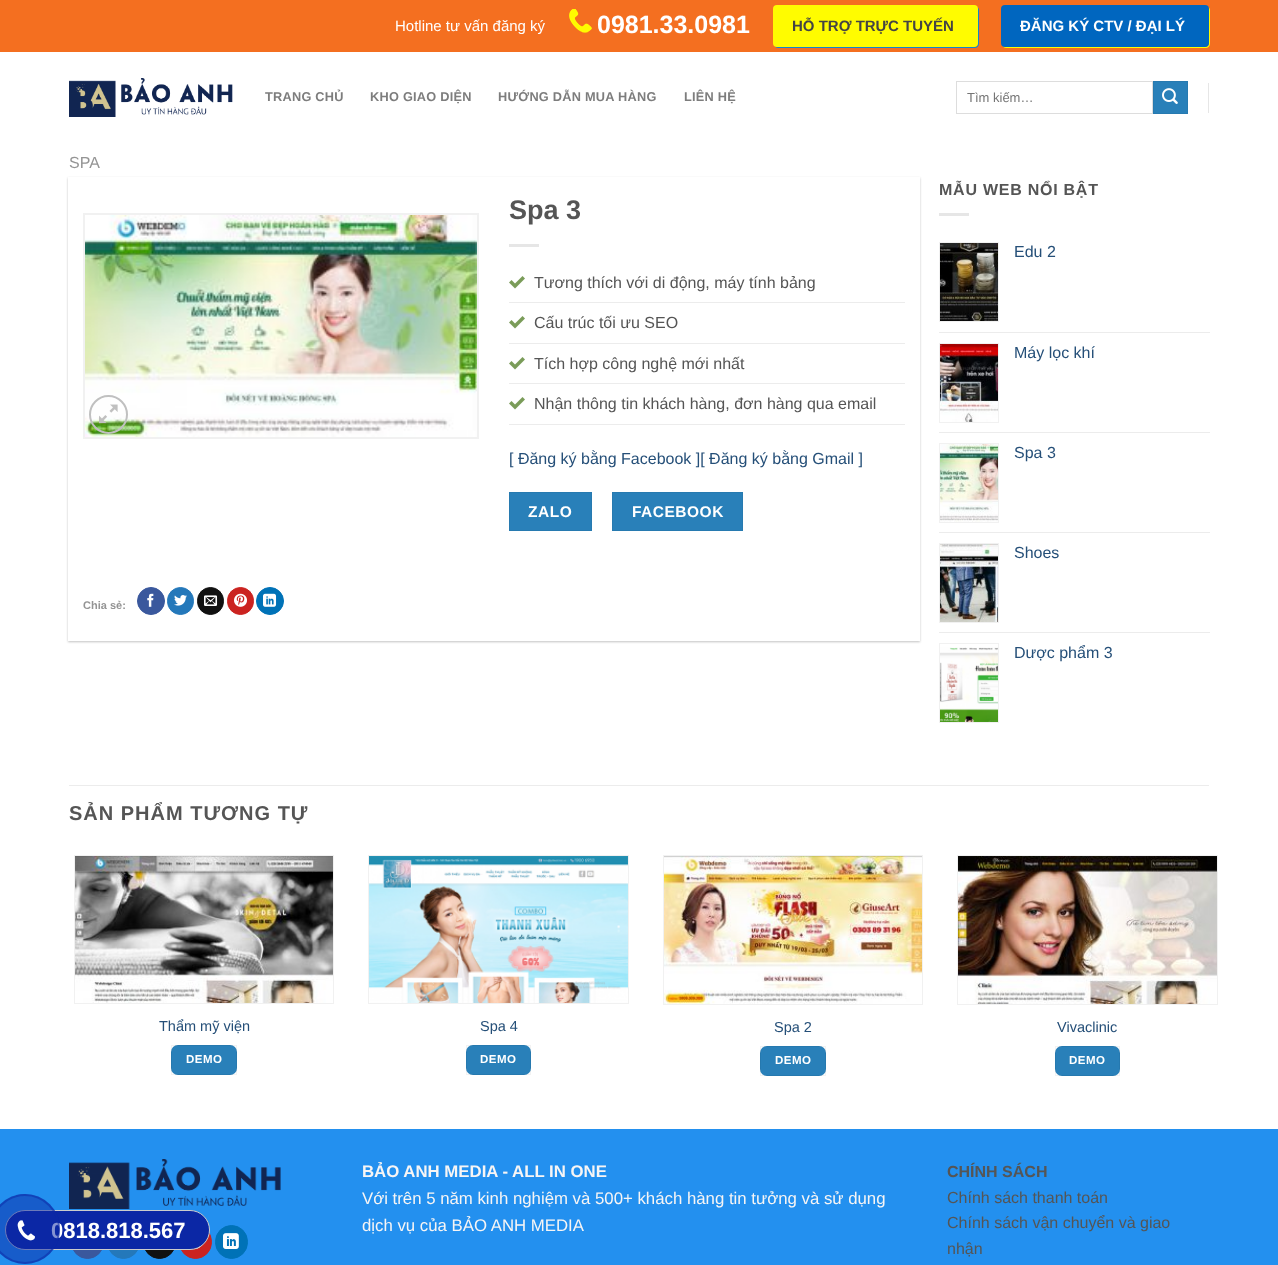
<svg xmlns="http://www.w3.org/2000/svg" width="1278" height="1265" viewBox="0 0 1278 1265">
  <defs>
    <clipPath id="clip1"><path d="M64 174H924V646H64ZM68 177H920V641H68Z" clip-rule="evenodd"/></clipPath>
  </defs>
  <rect width="100%" height="100%" fill="rgb(255,255,255)"/>
  <rect x="0" y="0" width="1278" height="52" fill="rgb(244,111,32)"/>
  <text x="395" y="31" font-family="Liberation Sans" font-size="15" fill="rgb(255,255,255)">Hotline tư vấn đăng ký</text>
  <image x="569" y="9" width="23" height="24" href="pic1.png"/>
  <text x="597" y="33" font-family="Liberation Sans" font-size="25" font-weight="bold" fill="rgb(255,255,255)">0981.33.0981</text>
  <path d="M775 46C775 47 777 48 778 48H975C977 48 979 46 979 44V10C979 9 978 7 977 7L978 9V43C978 45 976 47 974 47H777Z" fill="rgb(17,134,208)"/>
  <rect x="773" y="5" width="205" height="42" rx="4" fill="rgb(255,252,0)"/>
  <text x="792" y="31" font-family="Liberation Sans" font-size="15" font-weight="bold" fill="rgb(68,68,68)">HỖ TRỢ TRỰC TUYẾN</text>
  <path d="M1003 46C1003 47 1005 48 1006 48H1206C1208 48 1210 46 1210 44V10C1210 9 1209 7 1208 7L1209 9V43C1209 45 1207 47 1205 47H1005Z" fill="rgb(255,252,0)"/>
  <rect x="1001" y="5" width="208" height="42" rx="4" fill="rgb(0,102,191)"/>
  <text x="1020" y="31" font-family="Liberation Sans" font-size="15" font-weight="bold" fill="rgb(255,255,255)">ĐĂNG KÝ CTV / ĐẠI LÝ</text>
  <image x="69" y="78" width="164" height="39" href="pic2.png"/>
  <g font-family="Liberation Sans" font-size="12.75" font-weight="bold" letter-spacing="0.25" fill="rgb(125,125,125)">
    <text x="265" y="101">TRANG CHỦ</text>
    <text x="370" y="101">KHO GIAO DIỆN</text>
    <text x="498" y="101">HƯỚNG DẪN MUA HÀNG</text>
    <text x="684" y="101">LIÊN HỆ</text>
  </g>
  <rect x="956.5" y="81.5" width="196" height="32" fill="none" stroke="rgb(221,221,221)"/>
  <text x="967" y="102" font-family="Liberation Sans" font-size="13" fill="rgb(117,117,117)">Tìm kiếm…</text>
  <rect x="1153.5" y="81.5" width="34" height="32" fill="rgb(41,128,185)" stroke="rgb(39,122,176)"/>
  <image x="1162" y="88" width="16" height="16" href="pic3.png"/>
  <rect x="1208" y="83" width="1" height="30" fill="rgb(230,230,230)"/>
  <text x="69" y="168" font-family="Liberation Sans" font-size="16" fill="rgb(148,148,148)">SPA</text>
  <g clip-path="url(#clip1)">
    <rect x="68" y="178" width="852" height="464" fill="rgba(0,0,0,0.24)" filter="blur(1px)"/>
  </g>
  <rect x="84" y="214" width="394" height="224" fill="none" stroke="rgb(241,241,241)" stroke-width="2"/>
  <image x="85" y="215" width="392" height="222" href="pic4.png"/>
  <circle cx="108.5" cy="414.5" r="18.5" fill="none" stroke="rgb(192,192,192)" stroke-width="2"/>
  <image x="99" y="404" width="19" height="20" href="pic5.png"/>
  <text x="509" y="219" font-family="Liberation Sans" font-size="27" font-weight="bold" fill="rgb(85,85,85)">Spa 3</text>
  <rect x="509" y="244" width="30" height="3" fill="rgb(230,230,230)"/>
  <rect x="509" y="302" width="396" height="1" fill="rgb(236,236,236)"/>
  <image x="509" y="276" width="16" height="13" href="pic6.png"/>
  <text x="534" y="288" font-family="Liberation Sans" font-size="16" fill="rgb(85,85,85)">Tương thích với di động, máy tính bảng</text>
  <rect x="509" y="343" width="396" height="1" fill="rgb(236,236,236)"/>
  <image x="509" y="316" width="16" height="13" href="pic6.png"/>
  <text x="534" y="328" font-family="Liberation Sans" font-size="16" fill="rgb(85,85,85)">Cấu trúc tối ưu SEO</text>
  <rect x="509" y="383" width="396" height="1" fill="rgb(236,236,236)"/>
  <image x="509" y="357" width="16" height="13" href="pic6.png"/>
  <text x="534" y="369" font-family="Liberation Sans" font-size="16" fill="rgb(85,85,85)">Tích hợp công nghệ mới nhất</text>
  <rect x="509" y="424" width="396" height="1" fill="rgb(236,236,236)"/>
  <image x="509" y="397" width="16" height="13" href="pic6.png"/>
  <text x="534" y="409" font-family="Liberation Sans" font-size="16" fill="rgb(85,85,85)">Nhận thông tin khách hàng, đơn hàng qua email</text>
  <text x="509" y="464" font-family="Liberation Sans" font-size="16" fill="rgb(37,79,120)">[ Đăng ký bằng Facebook ][ Đăng ký bằng Gmail ]</text>
  <rect x="509.5" y="492.5" width="82" height="38" fill="rgb(41,128,185)" stroke="rgb(39,122,176)"/>
  <text x="528" y="517" font-family="Liberation Sans" font-size="15.5" font-weight="bold" letter-spacing="0.5" fill="rgb(255,255,255)">ZALO</text>
  <rect x="612.5" y="492.5" width="130" height="38" fill="rgb(41,128,185)" stroke="rgb(39,122,176)"/>
  <text x="632" y="517" font-family="Liberation Sans" font-size="15.5" font-weight="bold" letter-spacing="0.5" fill="rgb(255,255,255)">FACEBOOK</text>
  <text x="83" y="609" font-family="Liberation Sans" font-size="11" font-weight="bold" fill="rgb(148,148,148)">Chia sẻ:</text>
  <circle cx="151" cy="601" r="13.5" fill="rgb(58,88,157)" stroke="rgb(58,88,157)"/>
  <image x="147" y="593" width="7" height="14" href="pic7.png"/>
  <rect x="167.5" y="587.5" width="26" height="27" rx="13" fill="rgb(36,120,186)" stroke="rgb(36,120,186)"/>
  <image x="174" y="595" width="13" height="11" href="pic8.png"/>
  <rect x="197.5" y="587.5" width="26" height="27" rx="13" fill="rgb(17,17,17)" stroke="rgb(17,17,17)"/>
  <image x="204" y="595" width="14" height="11" href="pic9.png"/>
  <rect x="227.5" y="587.5" width="26" height="27" rx="13" fill="rgb(203,35,32)" stroke="rgb(203,35,32)"/>
  <image x="234" y="593" width="13" height="14" href="pic10.png"/>
  <circle cx="270" cy="601" r="13.5" fill="rgb(0,114,183)" stroke="rgb(0,114,183)"/>
  <image x="263" y="593" width="14" height="14" href="pic11.png"/>
  <text x="939" y="195" font-family="Liberation Sans" font-size="16" font-weight="bold" letter-spacing="0.75" fill="rgb(85,85,85)">MẪU WEB NỔI BẬT</text>
  <rect x="939" y="213" width="30" height="3" fill="rgb(230,230,230)"/>
  <rect x="939.5" y="242.5" width="59" height="79" fill="none" stroke="rgb(241,241,241)"/>
  <image x="940" y="243" width="58" height="78" href="pic12.png"/>
  <text x="1014" y="257" font-family="Liberation Sans" font-size="16" fill="rgb(37,79,120)">Edu 2</text>
  <rect x="939" y="332" width="271" height="1" fill="rgb(236,236,236)"/>
  <rect x="939.5" y="343.5" width="59" height="79" fill="none" stroke="rgb(241,241,241)"/>
  <image x="940" y="344" width="58" height="78" href="pic13.png"/>
  <text x="1014" y="358" font-family="Liberation Sans" font-size="16" fill="rgb(37,79,120)">Máy lọc khí</text>
  <rect x="939" y="432" width="271" height="1" fill="rgb(236,236,236)"/>
  <rect x="939.5" y="443.5" width="59" height="79" fill="none" stroke="rgb(241,241,241)"/>
  <image x="940" y="444" width="58" height="78" href="pic14.png"/>
  <text x="1014" y="458" font-family="Liberation Sans" font-size="16" fill="rgb(37,79,120)">Spa 3</text>
  <rect x="939" y="532" width="271" height="1" fill="rgb(236,236,236)"/>
  <rect x="939.5" y="543.5" width="59" height="79" fill="none" stroke="rgb(241,241,241)"/>
  <image x="940" y="544" width="58" height="78" href="pic15.png"/>
  <text x="1014" y="558" font-family="Liberation Sans" font-size="16" fill="rgb(37,79,120)">Shoes</text>
  <rect x="939" y="632" width="271" height="1" fill="rgb(236,236,236)"/>
  <rect x="939.5" y="643.5" width="59" height="79" fill="none" stroke="rgb(241,241,241)"/>
  <image x="940" y="647" width="58" height="75" href="pic16.png"/>
  <text x="1014" y="658" font-family="Liberation Sans" font-size="16" fill="rgb(37,79,120)">Dược phẩm 3</text>
  <rect x="69" y="785" width="1140" height="1" fill="rgb(236,236,236)"/>
  <text x="69" y="820" font-family="Liberation Sans" font-size="20" font-weight="bold" letter-spacing="1" fill="rgb(85,85,85)">SẢN PHẨM TƯƠNG TỰ</text>
  <rect x="74.5" y="855.5" width="259" height="148" fill="none" stroke="rgb(241,241,241)"/>
  <image x="75" y="856" width="258" height="147" href="pic17.png"/>
  <text x="159" y="1031" font-family="Liberation Sans" font-size="14.5" fill="rgb(37,79,120)">Thẩm mỹ viện</text>
  <rect x="171" y="1045" width="66" height="30" rx="7" fill="rgb(41,128,185)"/>
  <rect x="171.5" y="1045.5" width="65" height="29" fill="none" stroke="rgba(0,0,0,0.05)"/>
  <text x="186" y="1063" font-family="Liberation Sans" font-size="11.5" font-weight="bold" letter-spacing="0.5" fill="rgb(255,255,255)">DEMO</text>
  <rect x="368.5" y="855.5" width="260" height="148" fill="none" stroke="rgb(241,241,241)"/>
  <image x="369" y="856" width="259" height="147" href="pic18.png"/>
  <text x="480" y="1031" font-family="Liberation Sans" font-size="14.5" fill="rgb(37,79,120)">Spa 4</text>
  <rect x="466" y="1045" width="65" height="30" rx="7" fill="rgb(41,128,185)"/>
  <rect x="466.5" y="1045.5" width="64" height="29" fill="none" stroke="rgba(0,0,0,0.05)"/>
  <text x="480" y="1063" font-family="Liberation Sans" font-size="11.5" font-weight="bold" letter-spacing="0.5" fill="rgb(255,255,255)">DEMO</text>
  <rect x="663.5" y="855.5" width="259" height="149" fill="none" stroke="rgb(241,241,241)"/>
  <image x="664" y="856" width="258" height="148" href="pic19.png"/>
  <text x="774" y="1032" font-family="Liberation Sans" font-size="14.5" fill="rgb(37,79,120)">Spa 2</text>
  <rect x="760" y="1046" width="66" height="30" rx="7" fill="rgb(41,128,185)"/>
  <rect x="760.5" y="1046.5" width="65" height="29" fill="none" stroke="rgba(0,0,0,0.05)"/>
  <text x="775" y="1064" font-family="Liberation Sans" font-size="11.5" font-weight="bold" letter-spacing="0.5" fill="rgb(255,255,255)">DEMO</text>
  <rect x="957.5" y="855.5" width="260" height="149" fill="none" stroke="rgb(241,241,241)"/>
  <image x="958" y="856" width="259" height="148" href="pic20.png"/>
  <text x="1057" y="1032" font-family="Liberation Sans" font-size="14.5" fill="rgb(37,79,120)">Vivaclinic</text>
  <rect x="1055" y="1046" width="65" height="30" rx="7" fill="rgb(41,128,185)"/>
  <rect x="1055.5" y="1046.5" width="64" height="29" fill="none" stroke="rgba(0,0,0,0.05)"/>
  <text x="1069" y="1064" font-family="Liberation Sans" font-size="11.5" font-weight="bold" letter-spacing="0.5" fill="rgb(255,255,255)">DEMO</text>
  <rect x="0" y="1129" width="1278" height="136" fill="rgb(35,144,239)"/>
  <image x="69" y="1159" width="212" height="50" href="pic21.png"/>
  <rect x="71.5" y="1225.5" width="32" height="33" rx="16" fill="rgb(58,88,157)" stroke="rgb(58,88,157)"/>
  <rect x="107.5" y="1225.5" width="32" height="33" rx="16" fill="rgb(36,120,186)" stroke="rgb(36,120,186)"/>
  <rect x="143.5" y="1225.5" width="32" height="33" rx="16" fill="rgb(17,17,17)" stroke="rgb(17,17,17)"/>
  <rect x="179.5" y="1225.5" width="32" height="33" rx="16" fill="rgb(203,35,32)" stroke="rgb(203,35,32)"/>
  <image x="196" y="1246" width="5" height="3" href="pic22.png"/>
  <rect x="215.5" y="1225.5" width="32" height="33" rx="16" fill="rgb(0,114,183)" stroke="rgb(0,114,183)"/>
  <image x="223" y="1233" width="16" height="16" href="pic23.png"/>
  <text x="362" y="1177" font-family="Liberation Sans" font-size="16.8" font-weight="bold" fill="rgb(247,245,245)">BẢO ANH MEDIA - ALL IN ONE</text>
  <g font-family="Liberation Sans" font-size="16.8" fill="rgb(247,245,245)">
    <text>
      <tspan x="362" y="1204">Với trên 5 năm kinh nghiệm và 500+ khách hàng tin tưởng và sử dụng</tspan>
      <tspan x="362" y="1231">dịch vụ của BẢO ANH MEDIA</tspan>
    </text>
  </g>
  <text x="947" y="1177" font-family="Liberation Sans" font-size="16" font-weight="bold" fill="rgb(85,85,85)">CHÍNH SÁCH</text>
  <g font-family="Liberation Sans" font-size="16" fill="rgb(85,85,85)">
    <text>
      <tspan x="947" y="1203">Chính sách thanh toán</tspan>
      <tspan x="947" y="1228">Chính sách vận chuyển và giao</tspan>
      <tspan x="947" y="1254">nhận</tspan>
    </text>
  </g>
  <rect x="5.5" y="1210.5" width="204" height="39" rx="19.5" fill="rgb(11,39,165)" stroke="rgb(204,204,204)"/>
  <text x="51" y="1238" font-family="Liberation Sans" font-size="22" font-weight="bold" fill="rgb(255,255,255)">0818.818.567</text>
  <circle cx="25" cy="1229" r="35" fill="rgba(11,39,165,0.5)"/>
  <circle cx="25" cy="1229" r="34" fill="none" stroke="rgba(11,39,165,0.5)" stroke-width="2"/>
  <image x="17" y="1220" width="18" height="21" href="pic24.png"/>
</svg>
